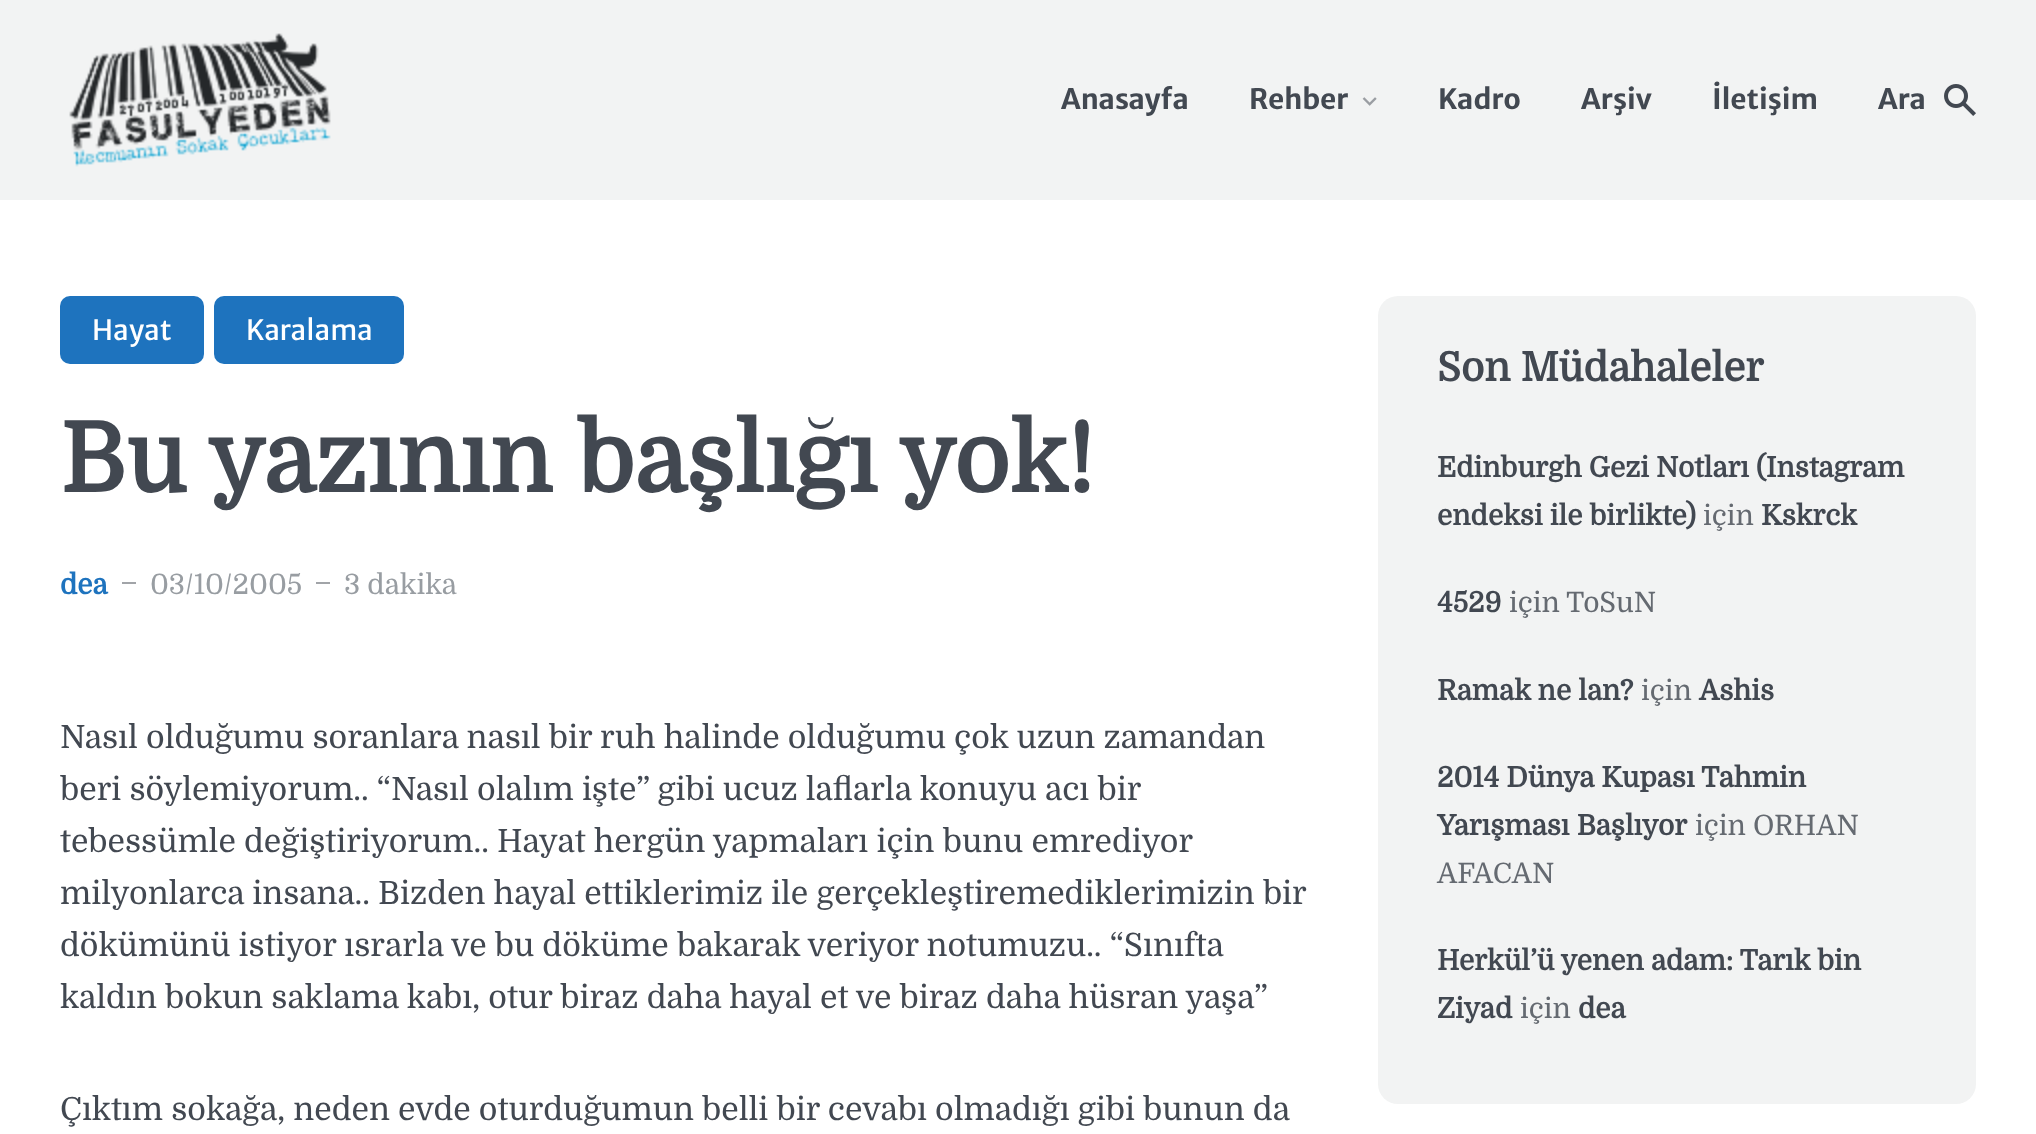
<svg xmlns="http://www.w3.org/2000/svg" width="2036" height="1134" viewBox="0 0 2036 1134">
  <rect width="100%" height="100%" fill="rgb(255,255,255)"/>
  <rect x="0" y="0" width="2036" height="200" fill="rgb(242,243,243)"/>
  <image x="69" y="33" width="262" height="134" href="pic1.png"/>
  <g font-family="Merriweather Sans" font-size="28" font-weight="bold" fill="rgb(66,72,81)">
    <text x="1061" y="109">Anasayfa</text>
    <text x="1249" y="109">Rehber</text>
  </g>
  <image x="1362" y="97" width="15" height="9" href="pic2.png"/>
  <g font-family="Merriweather Sans" font-size="28" font-weight="bold" fill="rgb(66,72,81)">
    <text x="1438" y="109">Kadro</text>
    <text x="1581" y="109">Arşiv</text>
    <text x="1712" y="109">İletişim</text>
    <text x="1878" y="109">Ara</text>
  </g>
  <image x="1944" y="84" width="32" height="32" href="pic3.png"/>
  <rect x="60" y="296" width="144" height="68" rx="10" fill="rgb(30,115,190)"/>
  <text x="92" y="340" font-family="Merriweather Sans" font-size="28" fill="rgb(255,255,255)">Hayat</text>
  <rect x="214" y="296" width="190" height="68" rx="10" fill="rgb(30,115,190)"/>
  <text x="246" y="340" font-family="Merriweather Sans" font-size="28" fill="rgb(255,255,255)">Karalama</text>
  <text x="60" y="492" font-family="Domine" font-size="96" font-weight="bold" fill="rgb(66,72,81)">Bu yazının başlığı yok!</text>
  <text x="60" y="594" font-family="Domine" font-size="28" font-weight="bold" fill="rgb(30,115,190)">dea</text>
  <rect x="122" y="582" width="14" height="2" fill="rgb(161,164,168)"/>
  <text x="150" y="594" font-family="Domine" font-size="28" fill="rgb(152,157,162)">03/10/2005</text>
  <rect x="316" y="582" width="14" height="2" fill="rgb(161,164,168)"/>
  <text x="344" y="594" font-family="Domine" font-size="28" fill="rgb(152,157,162)">3 dakika</text>
  <g font-family="Domine" font-size="32" fill="rgb(66,72,81)">
    <text>
      <tspan x="60" y="748">Nasıl olduğumu soranlara nasıl bir ruh halinde olduğumu çok uzun zamandan</tspan>
      <tspan x="60" y="800">beri söylemiyorum.. “Nasıl olalım işte” gibi ucuz laflarla konuyu acı bir</tspan>
      <tspan x="60" y="852">tebessümle değiştiriyorum.. Hayat hergün yapmaları için bunu emrediyor</tspan>
      <tspan x="60" y="904">milyonlarca insana.. Bizden hayal ettiklerimiz ile gerçekleştiremediklerimizin bir</tspan>
      <tspan x="60" y="956">dökümünü istiyor ısrarla ve bu döküme bakarak veriyor notumuzu.. “Sınıfta</tspan>
      <tspan x="60" y="1008">kaldın bokun saklama kabı, otur biraz daha hayal et ve biraz daha hüsran yaşa”</tspan>
    </text>
    <text x="60" y="1120">Çıktım sokağa, neden evde oturduğumun belli bir cevabı olmadığı gibi bunun da</text>
  </g>
  <rect x="1378" y="296" width="598" height="808" rx="20" fill="rgb(242,243,243)"/>
  <text x="1437" y="381" font-family="Domine" font-size="40" font-weight="bold" fill="rgb(66,72,81)">Son Müdahaleler</text>
  <g font-family="Domine" font-size="28" font-weight="bold" fill="rgb(66,72,81)">
    <text>
      <tspan x="1437" y="477">Edinburgh Gezi Notları (Instagram</tspan>
      <tspan x="1437" y="525">endeksi ile birlikte)</tspan>
    </text>
  </g>
  <text x="1703" y="525" font-family="Domine" font-size="28" fill="rgb(101,106,113)">için</text>
  <g font-family="Domine" font-size="28" font-weight="bold" fill="rgb(66,72,81)">
    <text x="1761" y="525">Kskrck</text>
    <text x="1437" y="612">4529</text>
  </g>
  <g font-family="Domine" font-size="28" fill="rgb(101,106,113)">
    <text x="1509" y="612">için</text>
    <text x="1566" y="612">ToSuN</text>
  </g>
  <text x="1437" y="700" font-family="Domine" font-size="28" font-weight="bold" fill="rgb(66,72,81)">Ramak ne lan?</text>
  <text x="1641" y="700" font-family="Domine" font-size="28" fill="rgb(101,106,113)">için</text>
  <g font-family="Domine" font-size="28" font-weight="bold" fill="rgb(66,72,81)">
    <text x="1699" y="700">Ashis</text>
    <text>
      <tspan x="1437" y="787">2014 Dünya Kupası Tahmin</tspan>
      <tspan x="1437" y="835">Yarışması Başlıyor</tspan>
    </text>
  </g>
  <g font-family="Domine" font-size="28" fill="rgb(101,106,113)">
    <text x="1695" y="835">için ORHAN</text>
    <text x="1437" y="883">AFACAN</text>
  </g>
  <g font-family="Domine" font-size="28" font-weight="bold" fill="rgb(66,72,81)">
    <text>
      <tspan x="1437" y="970">Herkül’ü yenen adam: Tarık bin</tspan>
      <tspan x="1437" y="1018">Ziyad</tspan>
    </text>
  </g>
  <text x="1520" y="1018" font-family="Domine" font-size="28" fill="rgb(101,106,113)">için</text>
  <text x="1578" y="1018" font-family="Domine" font-size="28" font-weight="bold" fill="rgb(66,72,81)">dea</text>
</svg>
